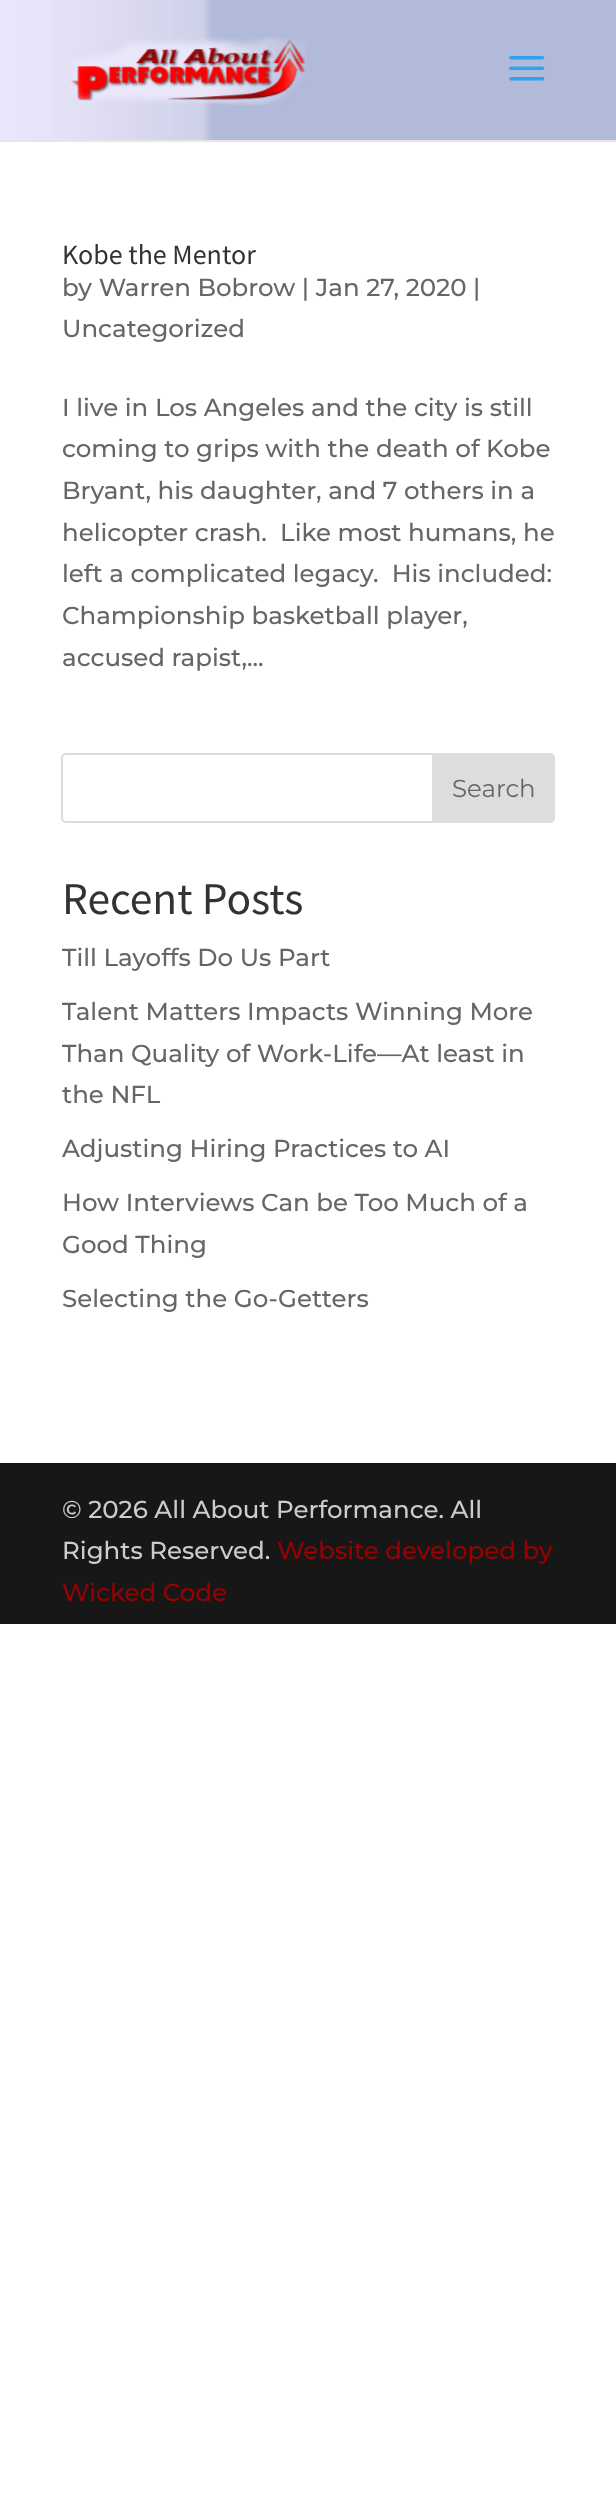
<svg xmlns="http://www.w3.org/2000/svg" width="616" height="2515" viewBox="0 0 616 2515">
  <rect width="100%" height="100%" fill="rgb(255,255,255)"/>
  <rect x="0" y="140" width="616" height="2" fill="rgb(230,230,230)"/>
  <image x="0" y="0" width="616" height="140" href="pic1.png"/>
  <image x="71" y="36" width="236" height="69" href="pic2.png"/>
  <image x="509" y="56" width="36" height="25" href="pic3.png"/>
  <text x="62" y="264" font-family="Source Sans Pro" font-size="28" fill="rgb(51,51,51)">Kobe the Mentor</text>
  <g font-family="Montserrat" font-size="24.5" font-weight="500" fill="rgb(102,102,102)">
    <text>
      <tspan x="62" y="296">by Warren Bobrow | Jan 27, 2020 |</tspan>
      <tspan x="62" y="337">Uncategorized</tspan>
    </text>
    <text xml:space="preserve"><tspan x="62" y="416">I live in Los Angeles and the city is still</tspan><tspan x="62" y="457">coming to grips with the death of Kobe</tspan><tspan x="62" y="499">Bryant, his daughter, and 7 others in a</tspan><tspan x="62" y="541">helicopter crash.  Like most humans, he</tspan><tspan x="62" y="582">left a complicated legacy.  His included:</tspan><tspan x="62" y="624">Championship basketball player,</tspan><tspan x="62" y="666">accused rapist,...</tspan></text>
  </g>
  <rect x="62" y="754" width="492" height="68" rx="4" fill="none" stroke="rgb(221,221,221)" stroke-width="2"/>
  <path d="M433 754H550C552 754 554 756 554 758V818C554 820 552 822 550 822H433Z" fill="rgb(221,221,221)" stroke="rgb(221,221,221)" stroke-width="2"/>
  <text x="452" y="797" font-family="Montserrat" font-size="24.5" fill="rgb(102,102,102)">Search</text>
  <text x="62" y="914" font-family="Source Sans Pro" font-size="45.5" fill="rgb(51,51,51)">Recent Posts</text>
  <g font-family="Montserrat" font-size="24.5" font-weight="500" fill="rgb(102,102,102)">
    <text x="62" y="966">Till Layoffs Do Us Part</text>
    <text>
      <tspan x="62" y="1020">Talent Matters Impacts Winning More</tspan>
      <tspan x="62" y="1062">Than Quality of Work-Life—At least in</tspan>
      <tspan x="62" y="1103">the NFL</tspan>
    </text>
    <text x="62" y="1157">Adjusting Hiring Practices to AI</text>
    <text>
      <tspan x="62" y="1211">How Interviews Can be Too Much of a</tspan>
      <tspan x="62" y="1253">Good Thing</tspan>
    </text>
    <text x="62" y="1307">Selecting the Go-Getters</text>
  </g>
  <rect x="0" y="1463" width="616" height="161" fill="rgb(23,23,23)"/>
  <g font-family="Montserrat" font-size="24.5" font-weight="500" fill="rgb(204,204,204)">
    <text>
      <tspan x="62" y="1518">© 2026 All About Performance. All</tspan>
      <tspan x="62" y="1559">Rights Reserved.</tspan>
    </text>
  </g>
  <g font-family="Montserrat" font-size="24.5" font-weight="500" fill="rgb(152,1,2)">
    <text x="277" y="1559">Website developed by</text>
    <text x="62" y="1601">Wicked Code</text>
  </g>
</svg>
